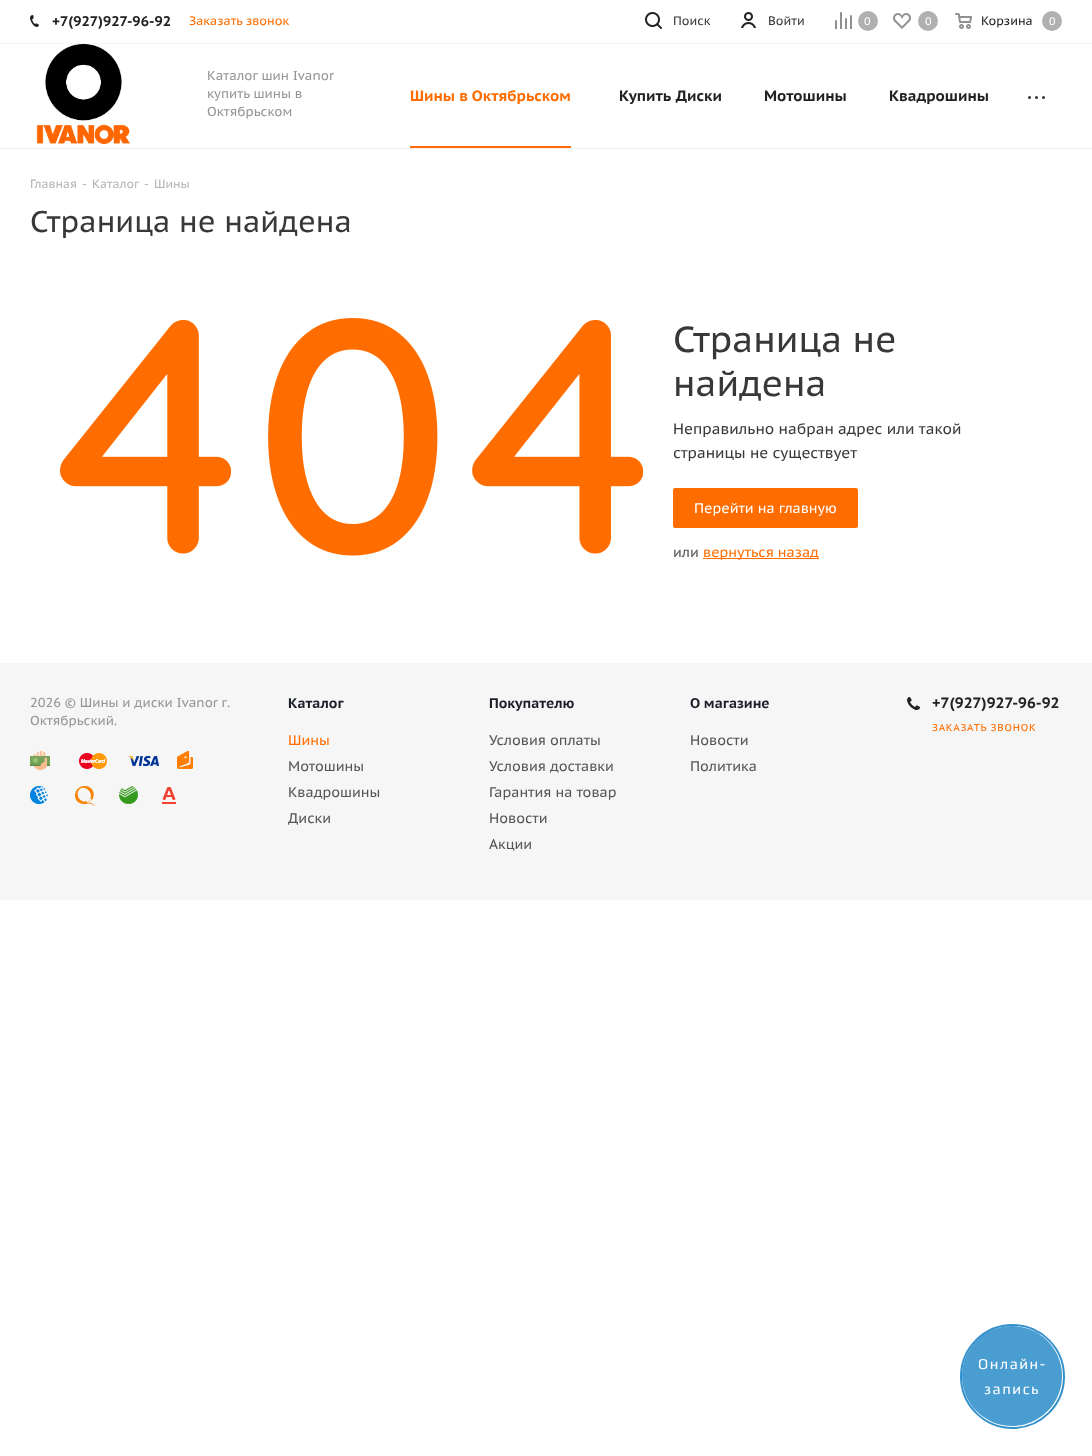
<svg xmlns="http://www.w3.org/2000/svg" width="1092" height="1456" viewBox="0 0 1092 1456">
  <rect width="100%" height="100%" fill="rgb(255,255,255)"/>
  <rect x="0" y="43" width="1092" height="1" fill="rgb(246,246,246)"/>
  <image x="30" y="15" width="9" height="12" href="pic1.png"/>
  <text x="52" y="26" font-family="PT Sans Caption" font-size="14" font-weight="bold" fill="rgb(34,34,34)">+7(927)927-96-92</text>
  <text x="189" y="25" font-family="PT Sans Caption" font-size="12.25" fill="rgb(255,109,0)">Заказать звонок</text>
  <image x="645" y="12" width="17" height="17" href="pic2.png"/>
  <text x="673" y="25" font-family="PT Sans Caption" font-size="12.25" fill="rgb(56,56,56)">Поиск</text>
  <image x="741" y="12" width="15" height="16" href="pic3.png"/>
  <text x="768" y="25" font-family="PT Sans Caption" font-size="12.25" fill="rgb(56,56,56)">Войти</text>
  <image x="835" y="12" width="17" height="17" href="pic4.png"/>
  <circle cx="868" cy="21" r="10" fill="rgb(176,176,176)"/>
  <text x="864" y="25" font-family="PT Sans Caption" font-size="11" fill="rgb(255,255,255)">0</text>
  <image x="893" y="13" width="18" height="16" href="pic5.png"/>
  <circle cx="928" cy="21" r="10" fill="rgb(176,176,176)"/>
  <text x="925" y="25" font-family="PT Sans Caption" font-size="11" fill="rgb(255,255,255)">0</text>
  <image x="955" y="13" width="17" height="16" href="pic6.png"/>
  <text x="981" y="25" font-family="PT Sans Caption" font-size="12.25" fill="rgb(34,34,34)">Корзина</text>
  <circle cx="1052" cy="21" r="10" fill="rgb(176,176,176)"/>
  <text x="1049" y="25" font-family="PT Sans Caption" font-size="11" fill="rgb(255,255,255)">0</text>
  <image x="30" y="44" width="107" height="100" href="pic7.png"/>
  <g font-family="PT Sans Caption" font-size="13" fill="rgb(149,149,149)">
    <text>
      <tspan x="207" y="80">Каталог шин Ivanor</tspan>
      <tspan x="207" y="98">купить шины в</tspan>
      <tspan x="207" y="116">Октябрьском</tspan>
    </text>
  </g>
  <text x="410" y="101" font-family="PT Sans Caption" font-size="15" font-weight="bold" fill="rgb(255,109,0)">Шины в Октябрьском</text>
  <rect x="410" y="146" width="161" height="2" fill="rgb(255,109,0)"/>
  <g font-family="PT Sans Caption" font-size="15" font-weight="bold" fill="rgb(34,34,34)">
    <text x="619" y="101" word-spacing="1">Купить Диски</text>
    <text x="764" y="101">Мотошины</text>
    <text x="889" y="101">Квадрошины</text>
  </g>
  <rect x="1028" y="96" width="17" height="3" fill="rgb(51,51,51)"/>
  <image x="1028" y="96" width="17" height="3" href="pic8.png"/>
  <rect x="0" y="148" width="1092" height="1" fill="rgb(240,240,240)"/>
  <g font-family="PT Sans Caption" font-size="12" fill="rgb(182,181,181)">
    <text x="30" y="188">Главная</text>
    <text x="82" y="188">-</text>
    <text x="92" y="188">Каталог</text>
    <text x="144" y="188">-</text>
    <text x="154" y="188">Шины</text>
  </g>
  <text x="30" y="232" font-family="PT Sans Caption" font-size="29.9" fill="rgb(56,56,56)">Страница не найдена</text>
  <image x="60" y="318" width="583" height="238" href="pic9.png"/>
  <g font-family="PT Sans Caption" font-size="36" fill="rgb(56,56,56)">
    <text>
      <tspan x="673" y="352">Страница не</tspan>
      <tspan x="673" y="396">найдена</tspan>
    </text>
  </g>
  <g font-family="PT Sans Caption" font-size="15" fill="rgb(56,56,56)">
    <text>
      <tspan x="673" y="434">Неправильно набран адрес или такой</tspan>
      <tspan x="673" y="458">страницы не существует</tspan>
    </text>
  </g>
  <rect x="673.5" y="488.5" width="184" height="39" rx="1.5" fill="rgb(255,109,0)" stroke="rgb(255,109,0)"/>
  <text x="694" y="513" font-family="PT Sans Caption" font-size="14" fill="rgb(255,255,255)">Перейти на главную</text>
  <text x="673" y="557" font-family="PT Sans Caption" font-size="14" fill="rgb(85,85,85)">или</text>
  <rect x="703" y="558" width="116" height="1" fill="rgb(255,109,0)"/>
  <text x="703" y="557" font-family="PT Sans Caption" font-size="14" fill="rgb(255,109,0)">вернуться назад</text>
  <rect x="0" y="663" width="1092" height="237" fill="rgb(246,246,247)"/>
  <g font-family="PT Sans Caption" font-size="13" fill="rgb(149,149,149)">
    <text>
      <tspan x="30" y="707">2026 © Шины и диски Ivanor г.</tspan>
      <tspan x="30" y="725">Октябрьский.</tspan>
    </text>
  </g>
  <image x="30" y="751" width="20" height="19" href="pic10.png"/>
  <image x="79" y="753" width="28" height="17" href="pic11.png"/>
  <image x="128" y="755" width="31" height="12" href="pic12.png"/>
  <image x="177" y="751" width="16" height="18" href="pic13.png"/>
  <image x="30" y="786" width="18" height="19" href="pic14.png"/>
  <image x="75" y="786" width="20" height="20" href="pic15.png"/>
  <image x="119" y="786" width="19" height="18" href="pic16.png"/>
  <image x="162" y="787" width="14" height="17" href="pic17.png"/>
  <text x="288" y="708" font-family="PT Sans Caption" font-size="14" font-weight="bold" fill="rgb(29,32,41)">Каталог</text>
  <text x="288" y="745" font-family="PT Sans Caption" font-size="14" fill="rgb(255,109,0)">Шины</text>
  <g font-family="PT Sans Caption" font-size="14" fill="rgb(85,85,85)">
    <text>
      <tspan x="288" y="771">Мотошины</tspan>
      <tspan x="288" y="797">Квадрошины</tspan>
      <tspan x="288" y="823">Диски</tspan>
    </text>
  </g>
  <text x="489" y="708" font-family="PT Sans Caption" font-size="14" font-weight="bold" fill="rgb(29,32,41)">Покупателю</text>
  <g font-family="PT Sans Caption" font-size="14" fill="rgb(85,85,85)">
    <text>
      <tspan x="489" y="745">Условия оплаты</tspan>
      <tspan x="489" y="771">Условия доставки</tspan>
      <tspan x="489" y="797">Гарантия на товар</tspan>
      <tspan x="489" y="823">Новости</tspan>
      <tspan x="489" y="849">Акции</tspan>
    </text>
  </g>
  <text x="690" y="708" font-family="PT Sans Caption" font-size="14" font-weight="bold" fill="rgb(29,32,41)">О магазине</text>
  <g font-family="PT Sans Caption" font-size="14" fill="rgb(85,85,85)">
    <text>
      <tspan x="690" y="745">Новости</tspan>
      <tspan x="690" y="771">Политика</tspan>
    </text>
  </g>
  <image x="907" y="697" width="13" height="13" href="pic18.png"/>
  <text x="932" y="708" font-family="PT Sans Caption" font-size="15" font-weight="bold" fill="rgb(34,34,34)">+7(927)927-96-92</text>
  <text x="932" y="731" font-family="PT Sans Caption" font-size="10" letter-spacing="0.75" fill="rgb(255,109,0)">ЗАКАЗАТЬ ЗВОНОК</text>
  <circle cx="1012" cy="1376" r="50" fill="rgb(73,157,209)"/>
  <circle cx="1012.5" cy="1376.5" r="51.5" fill="none" stroke="rgba(28,132,198,0.9)" stroke-width="2"/>
  <g font-family="Play" font-size="15" letter-spacing="1.5" fill="rgb(255,255,255)">
    <text x="978" y="1369">Онлайн-</text>
    <text x="984" y="1394">запись</text>
  </g>
</svg>
